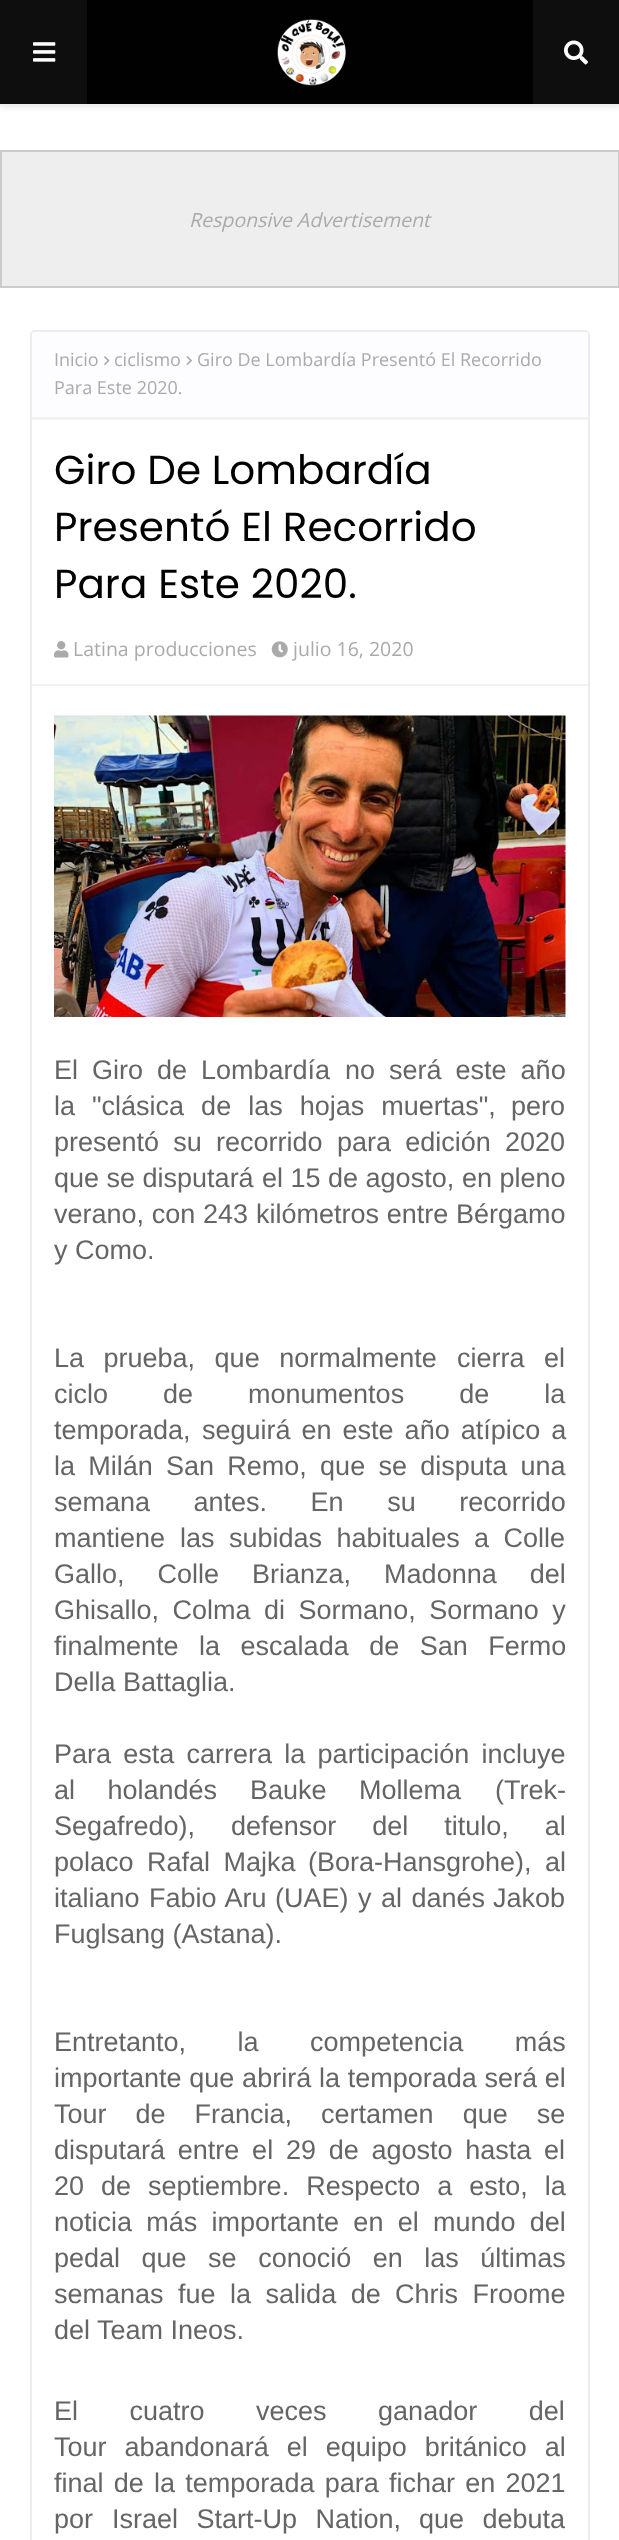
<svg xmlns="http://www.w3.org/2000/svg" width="619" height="2540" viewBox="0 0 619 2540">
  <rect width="100%" height="100%" fill="rgb(255,255,255)"/>
  <rect x="0" y="2" width="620" height="105" fill="rgba(0,0,0,0.1)" filter="blur(3px)"/>
  <rect x="87" y="0" width="446" height="104" fill="rgb(1,1,1)"/>
  <rect x="0" y="0" width="87" height="104" fill="rgb(14,14,14)"/>
  <rect x="533" y="0" width="86" height="104" fill="rgb(14,14,14)"/>
  <rect x="0" y="104" width="619" height="2" fill="rgb(238,238,238)"/>
  <image x="33" y="42" width="23" height="20" href="pic1.png"/>
  <image x="277" y="19" width="69" height="67" href="pic2.png"/>
  <image x="564" y="40" width="24" height="25" href="pic3.png"/>
  <rect x="1" y="151" width="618" height="136" fill="rgb(238,238,238)" stroke="rgb(204,204,204)" stroke-width="2"/>
  <text x="189" y="227" font-family="Open Sans" font-size="19.5" font-style="italic" fill="rgb(170,170,170)">Responsive Advertisement</text>
  <rect x="31" y="331" width="558" height="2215" rx="4" fill="none" stroke="rgb(235,235,243)" stroke-width="2"/>
  <path d="M35 332H585C586.5 332 588 333.5 588 335V420H32V335C32 333.5 33.5 332 35 332Z" fill="rgb(253,253,255)"/>
  <rect x="32" y="417" width="556" height="3" fill="rgb(242,242,246)"/>
  <text x="54" y="366" font-family="Open Sans" font-size="18" fill="rgb(170,170,170)">Inicio</text>
  <image x="104" y="356" width="6" height="9" href="pic4.png"/>
  <text x="114" y="366" font-family="Open Sans" font-size="18" fill="rgb(170,170,170)">ciclismo</text>
  <image x="186" y="356" width="6" height="9" href="pic5.png"/>
  <g font-family="Open Sans" font-size="18" fill="rgb(170,170,170)">
    <text x="197" y="366">Giro De Lombardía Presentó El Recorrido</text>
    <text x="54" y="394">Para Este 2020.</text>
  </g>
  <g font-family="Poppins" font-size="40.5" fill="rgb(0,0,0)">
    <text>
      <tspan x="54" y="484">Giro De Lombardía</tspan>
      <tspan x="54" y="541">Presentó El Recorrido</tspan>
      <tspan x="54" y="598">Para Este 2020.</tspan>
    </text>
  </g>
  <image x="54" y="641" width="15" height="17" href="pic6.png"/>
  <text x="73" y="656" font-family="Open Sans" font-size="19.5" fill="rgb(170,170,170)">Latina producciones</text>
  <image x="271" y="641" width="17" height="17" href="pic7.png"/>
  <text x="293" y="656" font-family="Open Sans" font-size="19.5" fill="rgb(170,170,170)">julio 16, 2020</text>
  <rect x="32" y="684" width="556" height="2" fill="rgb(242,242,246)"/>
  <image x="54" y="715" width="512" height="302" href="pic8.png"/>
  <text x="54" y="1079" word-spacing="6.5" font-family="Liberation Sans" font-size="27" fill="rgb(101,101,101)">El Giro de Lombardía</text>
  <rect x="330" y="1077" width="1" height="2" fill="rgb(255,255,255)"/>
  <g font-family="Liberation Sans" font-size="27" fill="rgb(101,101,101)">
    <text x="345" y="1079" word-spacing="6.5">no será este año</text>
    <text x="54" y="1115">la</text>
    <text x="92" y="1115" word-spacing="9.5">"clásica de las hojas muertas",</text>
    <text x="511" y="1115">pero</text>
    <text>
      <tspan x="54" y="1151" word-spacing="6.75">presentó su recorrido para edición 2020</tspan>
      <tspan x="54" y="1187">que se disputará</tspan>
    </text>
    <text x="262" y="1187">el 15 de agosto,</text>
    <text x="462" y="1187">en pleno</text>
    <text>
      <tspan x="54" y="1223" word-spacing="0.25">verano, con 243 kilómetros entre Bérgamo</tspan>
      <tspan x="54" y="1259">y Como.</tspan>
    </text>
    <text x="54" y="1367" word-spacing="12">La prueba, que normalmente</text>
    <text x="457" y="1367" word-spacing="12">cierra el</text>
    <text>
      <tspan x="54" y="1403" word-spacing="47.5">ciclo de monumentos de la</tspan>
      <tspan x="54" y="1439">temporada,</tspan>
    </text>
    <text x="202" y="1439" word-spacing="3.5">seguirá en este año atípico a</text>
    <text>
      <tspan x="54" y="1475" word-spacing="5.75">la Milán San Remo, que se disputa una</tspan>
      <tspan x="54" y="1511" word-spacing="36">semana antes. En su recorrido</tspan>
      <tspan x="54" y="1547">mantiene</tspan>
    </text>
    <text x="180" y="1547" word-spacing="7">las subidas habituales</text>
    <text x="474" y="1547" word-spacing="7">a Colle</text>
    <text>
      <tspan x="54" y="1583" word-spacing="25.5">Gallo, Colle Brianza, Madonna del</tspan>
      <tspan x="54" y="1619" word-spacing="6">Ghisallo, Colma di Sormano, Sormano y</tspan>
      <tspan x="54" y="1655" word-spacing="13">finalmente la escalada de San Fermo</tspan>
      <tspan x="54" y="1691">Della Battaglia.</tspan>
    </text>
    <text>
      <tspan x="54" y="1763" word-spacing="4.75">Para esta carrera la participación incluye</tspan>
      <tspan x="54" y="1799" word-spacing="25">al holandés</tspan>
    </text>
    <text x="250" y="1799" word-spacing="25">Bauke Mollema</text>
    <text x="495" y="1799">(Trek-</text>
    <text>
      <tspan x="54" y="1835" word-spacing="28.5">Segafredo), defensor del titulo, al</tspan>
      <tspan x="54" y="1871">polaco</tspan>
    </text>
    <text x="147" y="1871" word-spacing="6">Rafal Majka</text>
    <text x="308" y="1871" word-spacing="6">(Bora-Hansgrohe), al</text>
    <text x="54" y="1907">italiano</text>
    <text x="149" y="1907" word-spacing="2">Fabio Aru</text>
    <text x="275" y="1907" word-spacing="2">(UAE) y al danés</text>
    <text x="493" y="1907">Jakob</text>
    <text x="54" y="1943">Fuglsang (Astana).</text>
    <text>
      <tspan x="54" y="2051" word-spacing="44">Entretanto, la competencia más</tspan>
      <tspan x="54" y="2087" word-spacing="0.25">importante que abrirá la temporada será el</tspan>
      <tspan x="54" y="2123" word-spacing="21.5">Tour de Francia, certamen que se</tspan>
      <tspan x="54" y="2159" word-spacing="5.25">disputará entre el 29 de agosto hasta el</tspan>
      <tspan x="54" y="2195" word-spacing="9.5">20 de septiembre. Respecto a esto, la</tspan>
      <tspan x="54" y="2231" word-spacing="6.75">noticia más importante en el mundo del</tspan>
      <tspan x="54" y="2267" word-spacing="14">pedal que se conoció en las últimas</tspan>
      <tspan x="54" y="2303" word-spacing="7">semanas fue la salida de</tspan>
    </text>
    <text x="395" y="2303" word-spacing="7">Chris Froome</text>
    <text x="54" y="2339">del Team Ineos.</text>
    <text>
      <tspan x="54" y="2420" word-spacing="44">El cuatro veces ganador del</tspan>
      <tspan x="54" y="2456" word-spacing="10.5">Tour abandonará el equipo británico al</tspan>
      <tspan x="54" y="2492" word-spacing="2.75">final de la temporada para fichar en 2021</tspan>
      <tspan x="54" y="2528">por</tspan>
    </text>
    <text x="112" y="2528" word-spacing="11">Israel Start-Up Nation,</text>
    <text x="419" y="2528" word-spacing="11">que debuta</text>
  </g>
</svg>
